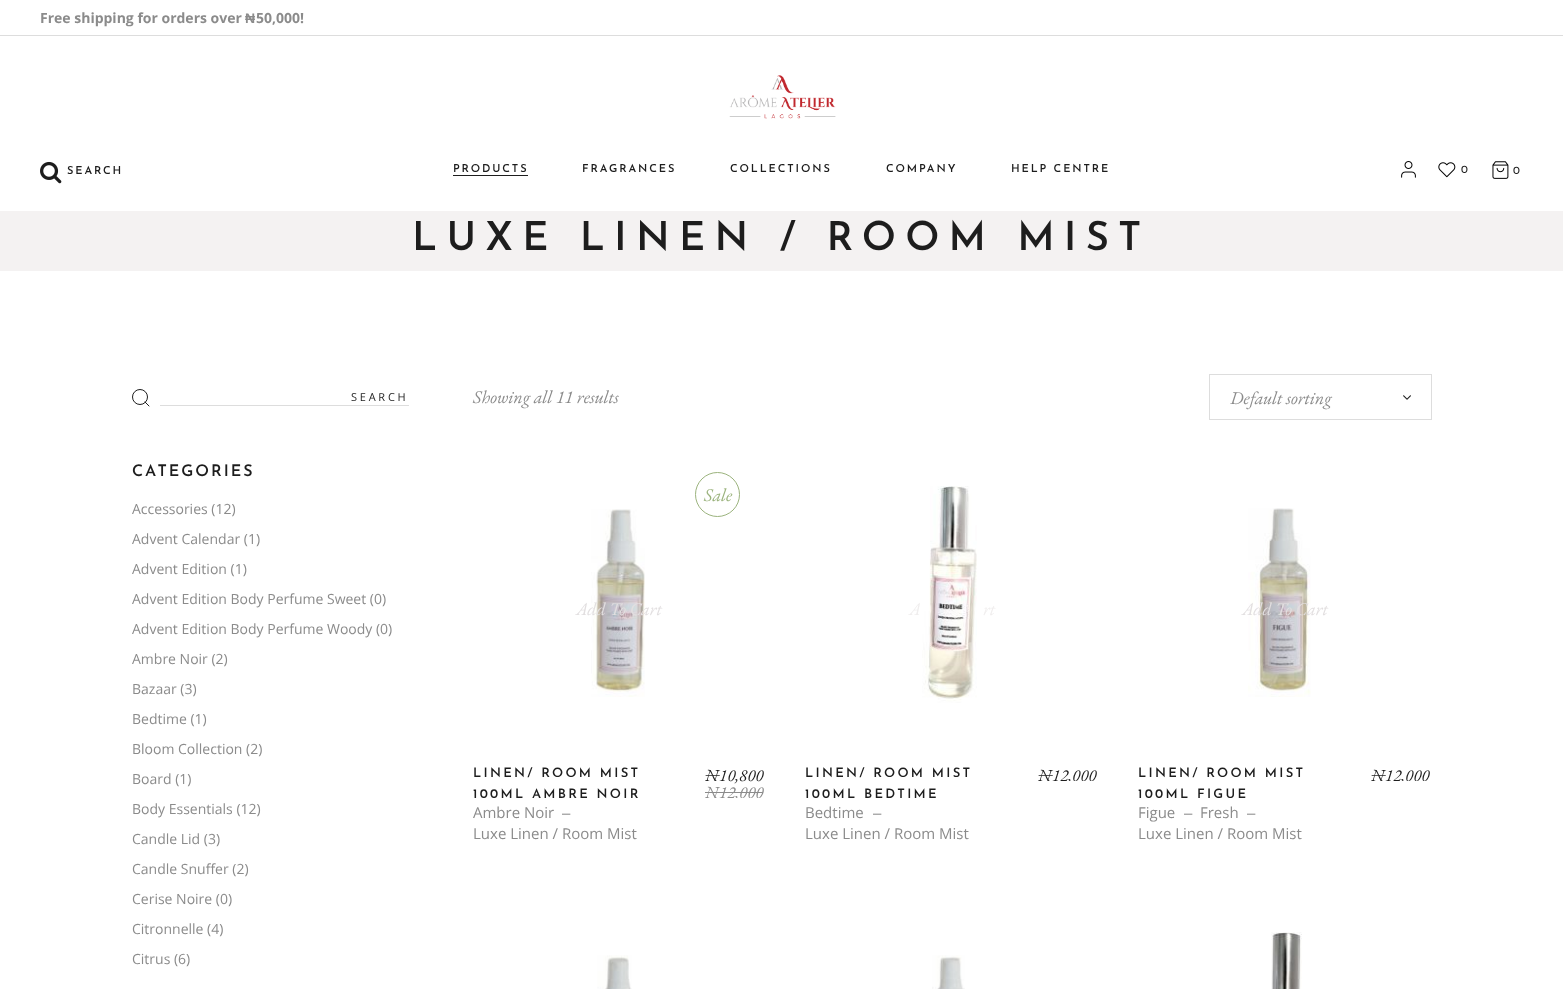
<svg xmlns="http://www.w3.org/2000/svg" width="1563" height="989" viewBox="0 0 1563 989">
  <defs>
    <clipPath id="clip1"><rect x="686" y="764" width="79" height="34"/></clipPath>
    <clipPath id="clip2"><rect x="1019" y="764" width="79" height="17"/></clipPath>
    <clipPath id="clip3"><rect x="1352" y="764" width="79" height="17"/></clipPath>
  </defs>
  <rect width="100%" height="100%" fill="rgb(255,255,255)"/>
  <text x="40" y="23" font-family="Open Sans" font-size="14" font-weight="bold" fill="rgb(139,139,139)">Free shipping for orders over</text>
  <text x="245" y="23" font-family="Liberation Sans" font-size="14" font-weight="bold" fill="rgb(139,139,139)">₦</text>
  <text x="256" y="23" font-family="Open Sans" font-size="14" font-weight="bold" fill="rgb(139,139,139)">50,000!</text>
  <rect x="0" y="35" width="1563" height="1" fill="rgb(221,221,221)"/>
  <image x="729" y="75" width="107" height="44" href="pic1.png"/>
  <image x="40" y="161" width="22" height="23" href="pic2.png"/>
  <g font-family="Josefin Sans" font-size="11" font-weight="600" letter-spacing="1.9" fill="rgb(29,29,29)">
    <text x="67" y="174">SEARCH</text>
    <text x="453" y="172">PRODUCTS</text>
  </g>
  <rect x="453" y="175" width="75" height="1" fill="rgb(29,29,29)"/>
  <g font-family="Josefin Sans" font-size="11" font-weight="600" letter-spacing="1.9" fill="rgb(29,29,29)">
    <text x="582" y="172">FRAGRANCES</text>
    <text x="730" y="172">COLLECTIONS</text>
    <text x="886" y="172">COMPANY</text>
    <text x="1011" y="172">HELP CENTRE</text>
  </g>
  <image x="1401" y="161" width="15" height="17" href="pic3.png"/>
  <image x="1438" y="162" width="18" height="16" href="pic4.png"/>
  <text x="1461" y="173" font-family="Josefin Sans" font-size="11" letter-spacing="2.75" fill="rgb(29,29,29)">0</text>
  <image x="1492" y="161" width="17" height="18" href="pic5.png"/>
  <text x="1513" y="174" font-family="Josefin Sans" font-size="11" letter-spacing="2.75" fill="rgb(29,29,29)">0</text>
  <rect x="0" y="211" width="1563" height="60" fill="rgb(244,242,242)"/>
  <text x="412" y="250" font-family="Josefin Sans" font-size="40" font-weight="600" letter-spacing="9.2" fill="rgb(29,29,29)">LUXE LINEN / ROOM MIST</text>
  <circle cx="140" cy="397" r="7.5" fill="none" stroke="rgb(29,29,29)"/>
  <path d="M149 406L145 402" fill="none" stroke="rgb(29,29,29)" stroke-linecap="round" stroke-linejoin="round"/>
  <text x="351" y="401" font-family="Open Sans" font-size="11" letter-spacing="2.75" fill="rgb(29,29,29)">SEARCH</text>
  <rect x="160" y="405" width="249" height="1" fill="rgb(221,221,221)"/>
  <text x="132" y="476" font-family="Josefin Sans" font-size="16" font-weight="600" letter-spacing="2" fill="rgb(29,29,29)">CATEGORIES</text>
  <g font-family="Open Sans" font-size="14" fill="rgb(139,139,139)">
    <text x="132" y="514">Accessories (12)</text>
    <text x="132" y="544">Advent Calendar (1)</text>
    <text x="132" y="574">Advent Edition (1)</text>
    <text x="132" y="604">Advent Edition Body Perfume Sweet (0)</text>
    <text x="132" y="634">Advent Edition Body Perfume Woody (0)</text>
    <text x="132" y="664">Ambre Noir (2)</text>
    <text x="132" y="694">Bazaar (3)</text>
    <text x="132" y="724">Bedtime (1)</text>
    <text x="132" y="754">Bloom Collection (2)</text>
    <text x="132" y="784">Board (1)</text>
    <text x="132" y="814">Body Essentials (12)</text>
    <text x="132" y="844">Candle Lid (3)</text>
    <text x="132" y="874">Candle Snuffer (2)</text>
    <text x="132" y="904">Cerise Noire (0)</text>
    <text x="132" y="934">Citronnelle (4)</text>
    <text x="132" y="964">Citrus (6)</text>
  </g>
  <text x="473" y="403" font-family="EB Garamond" font-size="18" font-style="italic" fill="rgb(139,139,139)">Showing all 11 results</text>
  <rect x="1209.5" y="374.5" width="222" height="45" fill="none" stroke="rgb(221,221,221)"/>
  <text x="1230" y="404" font-family="EB Garamond" font-size="18" font-style="italic" fill="rgb(139,139,139)">Default sorting</text>
  <image x="1403" y="395" width="8" height="5" href="pic6.png"/>
  <circle cx="717.5" cy="494.5" r="22" fill="none" stroke="rgb(155,179,125)"/>
  <text x="704" y="501" font-family="EB Garamond" font-size="18" font-style="italic" fill="rgb(155,179,125)">Sale</text>
  <image x="591" y="509" width="54" height="188" href="pic7.png"/>
  <text x="576" y="615" font-family="EB Garamond" font-size="18" font-style="italic" fill="rgb(226,223,224)">Add To Cart</text>
  <g font-family="Josefin Sans" font-size="13" font-weight="600" letter-spacing="2.3" fill="rgb(29,29,29)">
    <text>
      <tspan x="473" y="777">LINEN/ ROOM MIST</tspan>
      <tspan x="473" y="798">100ML AMBRE NOIR</tspan>
    </text>
  </g>
  <text x="473" y="818" font-family="Open Sans" font-size="15" fill="rgb(139,139,139)">Ambre Noir</text>
  <text x="562" y="818" font-family="Liberation Sans" font-size="15" fill="rgb(139,139,139)">‒</text>
  <text x="473" y="839" font-family="Open Sans" font-size="15" fill="rgb(139,139,139)">Luxe Linen / Room Mist</text>
  <text x="705" y="781" font-family="EB Garamond" font-size="17" font-style="italic" fill="rgb(29,29,29)">₦10,800</text>
  <text x="705" y="798" font-family="EB Garamond" font-size="17" font-style="italic" fill="rgb(139,139,139)">₦</text>
  <g clip-path="url(#clip1)">
    <text x="719" y="798" font-family="EB Garamond" font-size="17" font-style="italic" fill="rgb(139,139,139)">12,000</text>
  </g>
  <rect x="705" y="792" width="14" height="1" fill="rgb(139,139,139)"/>
  <rect x="719" y="792" width="44" height="1" fill="rgb(139,139,139)"/>
  <image x="922" y="486" width="55" height="217" href="pic8.png"/>
  <g font-family="EB Garamond" font-size="18" font-style="italic" fill="rgb(240,238,238)">
    <text x="909" y="615">A</text>
    <text x="983" y="615">rt</text>
  </g>
  <g font-family="Josefin Sans" font-size="13" font-weight="600" letter-spacing="2.3" fill="rgb(29,29,29)">
    <text>
      <tspan x="805" y="777">LINEN/ ROOM MIST</tspan>
      <tspan x="805" y="798">100ML BEDTIME</tspan>
    </text>
  </g>
  <text x="805" y="818" font-family="Open Sans" font-size="15" fill="rgb(139,139,139)">Bedtime</text>
  <text x="873" y="818" font-family="Liberation Sans" font-size="15" fill="rgb(139,139,139)">‒</text>
  <text x="805" y="839" font-family="Open Sans" font-size="15" fill="rgb(139,139,139)">Luxe Linen / Room Mist</text>
  <text x="1038" y="781" font-family="EB Garamond" font-size="17" font-style="italic" fill="rgb(29,29,29)">₦</text>
  <g clip-path="url(#clip2)">
    <text x="1052" y="781" font-family="EB Garamond" font-size="17" font-style="italic" fill="rgb(29,29,29)">12,000</text>
  </g>
  <image x="1248" y="508" width="63" height="189" href="pic9.png"/>
  <text x="1242" y="615" font-family="EB Garamond" font-size="18" font-style="italic" fill="rgb(226,223,224)">Add To Cart</text>
  <g font-family="Josefin Sans" font-size="13" font-weight="600" letter-spacing="2.3" fill="rgb(29,29,29)">
    <text>
      <tspan x="1138" y="777">LINEN/ ROOM MIST</tspan>
      <tspan x="1138" y="798">100ML FIGUE</tspan>
    </text>
  </g>
  <text x="1138" y="818" font-family="Open Sans" font-size="15" fill="rgb(139,139,139)">Figue</text>
  <text x="1184" y="818" font-family="Liberation Sans" font-size="15" fill="rgb(139,139,139)">‒</text>
  <text x="1200" y="818" font-family="Open Sans" font-size="15" fill="rgb(139,139,139)">Fresh</text>
  <text x="1247" y="818" font-family="Liberation Sans" font-size="15" fill="rgb(139,139,139)">‒</text>
  <text x="1138" y="839" font-family="Open Sans" font-size="15" fill="rgb(139,139,139)">Luxe Linen / Room Mist</text>
  <text x="1371" y="781" font-family="EB Garamond" font-size="17" font-style="italic" fill="rgb(29,29,29)">₦</text>
  <g clip-path="url(#clip3)">
    <text x="1385" y="781" font-family="EB Garamond" font-size="17" font-style="italic" fill="rgb(29,29,29)">12,000</text>
  </g>
  <image x="597" y="955" width="35" height="34" href="pic10.png"/>
  <image x="932" y="955" width="33" height="34" href="pic11.png"/>
  <image x="1271" y="932" width="31" height="57" href="pic12.png"/>
</svg>
